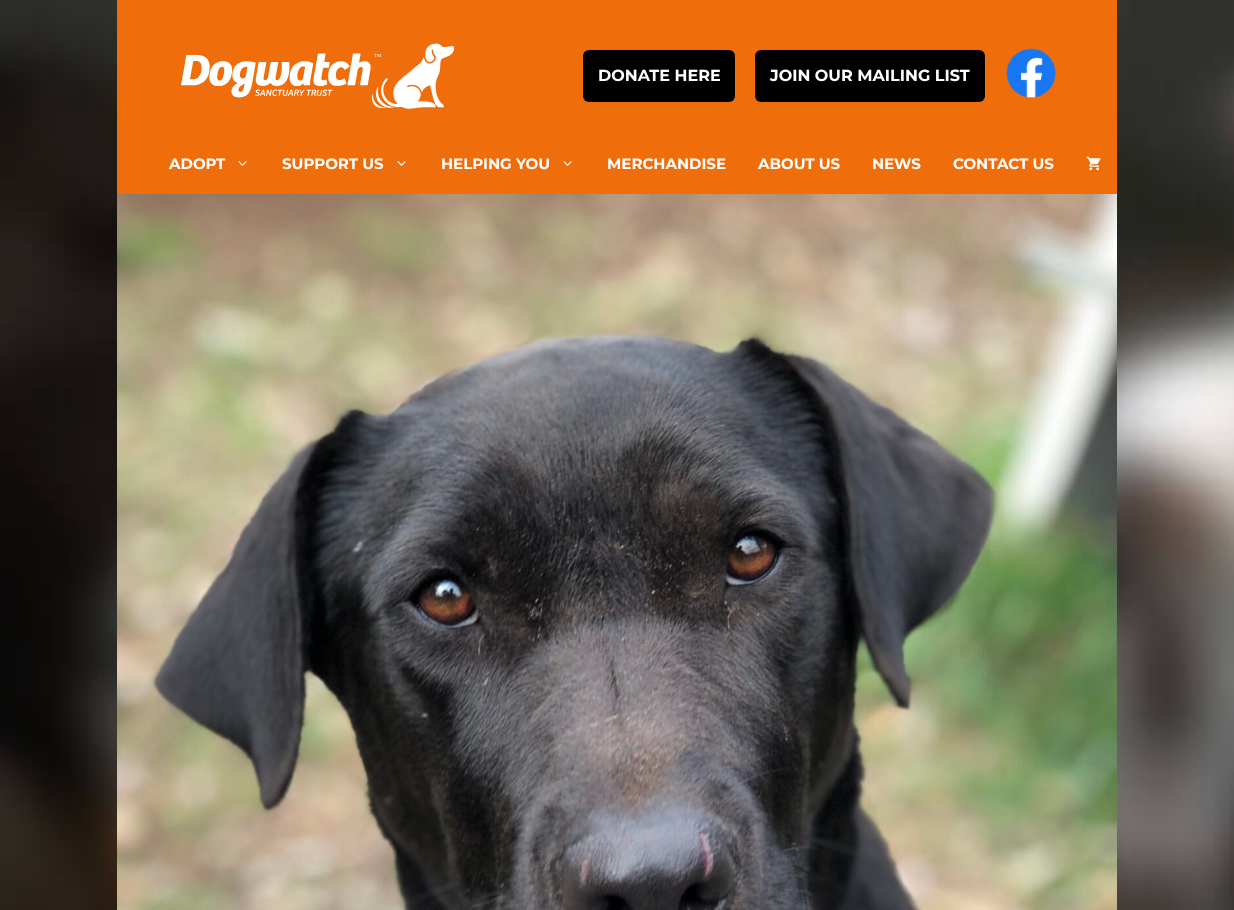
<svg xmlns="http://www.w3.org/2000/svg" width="1234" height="910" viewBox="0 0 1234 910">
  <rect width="100%" height="100%" fill="rgb(255,255,255)"/>
  <image x="0" y="0" width="1234" height="910" href="pic1.png"/>
  <rect x="117" y="0" width="1000" height="194" fill="rgb(239,110,11)"/>
  <image x="181" y="43" width="274" height="66" href="pic2.png"/>
  <rect x="583" y="50" width="152" height="52" rx="6" fill="rgb(0,0,0)"/>
  <text x="598" y="81" font-family="Montserrat" font-size="16" font-weight="bold" fill="rgb(255,255,255)">DONATE HERE</text>
  <rect x="755" y="50" width="230" height="52" rx="6" fill="rgb(0,0,0)"/>
  <text x="770" y="81" font-family="Montserrat" font-size="16" font-weight="bold" fill="rgb(255,255,255)">JOIN OUR MAILING LIST</text>
  <image x="1006" y="48" width="50" height="50" href="pic3.png"/>
  <text x="169" y="169" font-family="Montserrat" font-size="15" font-weight="bold" fill="rgb(255,255,255)">ADOPT</text>
  <image x="238" y="161" width="9" height="5" href="pic4.png"/>
  <text x="282" y="169" font-family="Montserrat" font-size="15" font-weight="bold" fill="rgb(255,255,255)">SUPPORT US</text>
  <image x="397" y="161" width="9" height="5" href="pic4.png"/>
  <text x="441" y="169" font-family="Montserrat" font-size="15" font-weight="bold" fill="rgb(255,255,255)">HELPING YOU</text>
  <image x="563" y="161" width="9" height="5" href="pic4.png"/>
  <g font-family="Montserrat" font-size="15" font-weight="bold" fill="rgb(255,255,255)">
    <text x="607" y="169">MERCHANDISE</text>
    <text x="758" y="169">ABOUT US</text>
    <text x="872" y="169">NEWS</text>
    <text x="953" y="169">CONTACT US</text>
  </g>
  <image x="1086" y="156" width="15" height="15" href="pic5.png"/>
  <image x="117" y="194" width="1000" height="716" href="pic6.png"/>
</svg>
